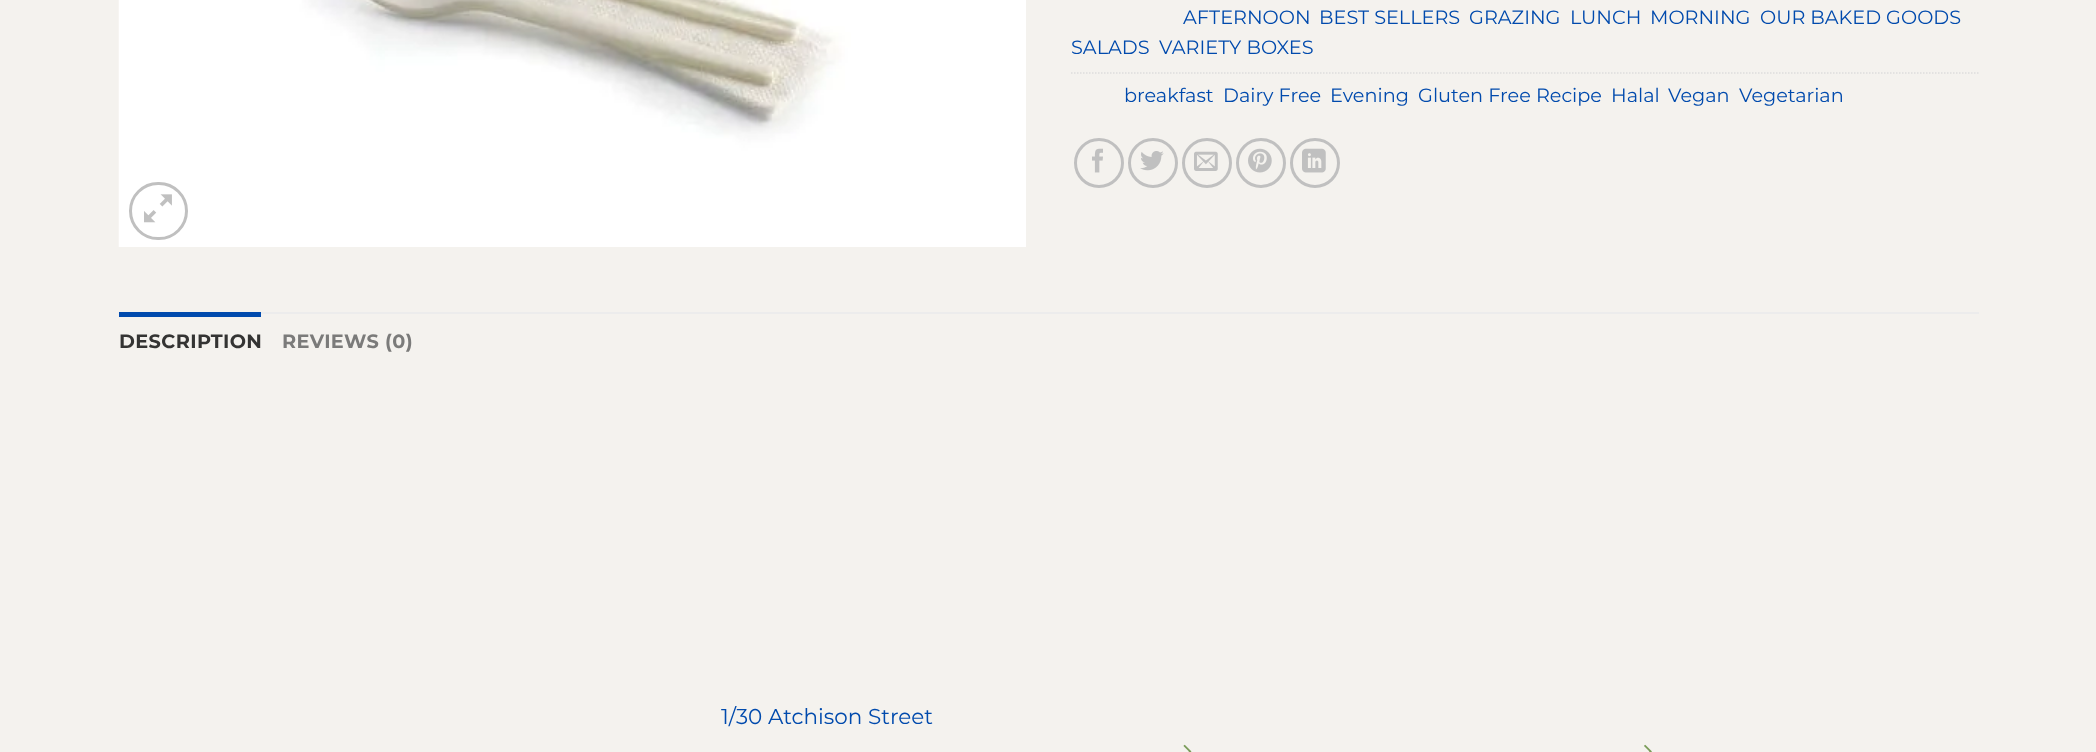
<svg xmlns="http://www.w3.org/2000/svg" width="2096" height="752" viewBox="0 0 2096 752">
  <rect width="100%" height="100%" fill="rgb(244,242,238)"/>
  <image x="118" y="0" width="908" height="247" href="pic1.png"/>
  <rect x="130.5" y="183.5" width="56" height="55" rx="27.5" fill="none" stroke="rgb(192,192,192)" stroke-width="3"/>
  <image x="144" y="194" width="28" height="29" href="pic2.png"/>
  <g font-family="Montserrat" font-size="19.25" fill="rgb(0,74,173)">
    <text x="1183" y="24">AFTERNOON</text>
    <text x="1319" y="24">BEST SELLERS</text>
    <text x="1469" y="24">GRAZING</text>
    <text x="1570" y="24">LUNCH</text>
    <text x="1650" y="24">MORNING</text>
    <text x="1760" y="24">OUR BAKED GOODS</text>
    <text x="1071" y="54">SALADS</text>
    <text x="1159" y="54">VARIETY BOXES</text>
  </g>
  <path d="M1071 73H1978.5" fill="none" stroke="rgb(221,221,221)" stroke-width="1.5" stroke-dasharray="1.5 1.5"/>
  <g font-family="Montserrat" font-size="19.25" fill="rgb(0,74,173)">
    <text x="1124" y="102">breakfast</text>
    <text x="1223" y="102">Dairy Free</text>
    <text x="1330" y="102">Evening</text>
    <text x="1418" y="102">Gluten Free Recipe</text>
    <text x="1611" y="102">Halal</text>
    <text x="1668" y="102">Vegan</text>
    <text x="1739" y="102">Vegetarian</text>
  </g>
  <circle cx="1099" cy="163" r="23.5" fill="none" stroke="rgb(192,192,192)" stroke-width="3"/>
  <image x="1092" y="148" width="11" height="25" href="pic3.png"/>
  <circle cx="1153" cy="163" r="23.5" fill="none" stroke="rgb(192,192,192)" stroke-width="3"/>
  <image x="1140" y="151" width="24" height="20" href="pic4.png"/>
  <circle cx="1207" cy="163" r="23.5" fill="none" stroke="rgb(192,192,192)" stroke-width="3"/>
  <image x="1194" y="151" width="24" height="20" href="pic5.png"/>
  <circle cx="1261" cy="163" r="23.5" fill="none" stroke="rgb(192,192,192)" stroke-width="3"/>
  <image x="1248" y="148" width="24" height="25" href="pic6.png"/>
  <circle cx="1315" cy="163" r="23.5" fill="none" stroke="rgb(192,192,192)" stroke-width="3"/>
  <image x="1302" y="148" width="24" height="25" href="pic7.png"/>
  <rect x="261" y="312" width="1718" height="2" fill="rgb(236,236,236)"/>
  <rect x="119" y="312" width="142" height="5" fill="rgb(0,74,173)"/>
  <text x="119" y="348" font-family="Montserrat" font-size="19.25" font-weight="bold" letter-spacing="0.4" fill="rgb(52,52,51)">DESCRIPTION</text>
  <text x="282" y="348" font-family="Montserrat" font-size="19.25" font-weight="bold" letter-spacing="0.4" fill="rgb(123,123,122)">REVIEWS (0)</text>
  <text x="721" y="724" font-family="Montserrat" font-size="21.5" fill="rgb(0,74,173)">1/30 Atchison Street</text>
  <image x="1183" y="744" width="9" height="8" href="pic8.png"/>
  <image x="1644" y="744" width="8" height="8" href="pic9.png"/>
</svg>
